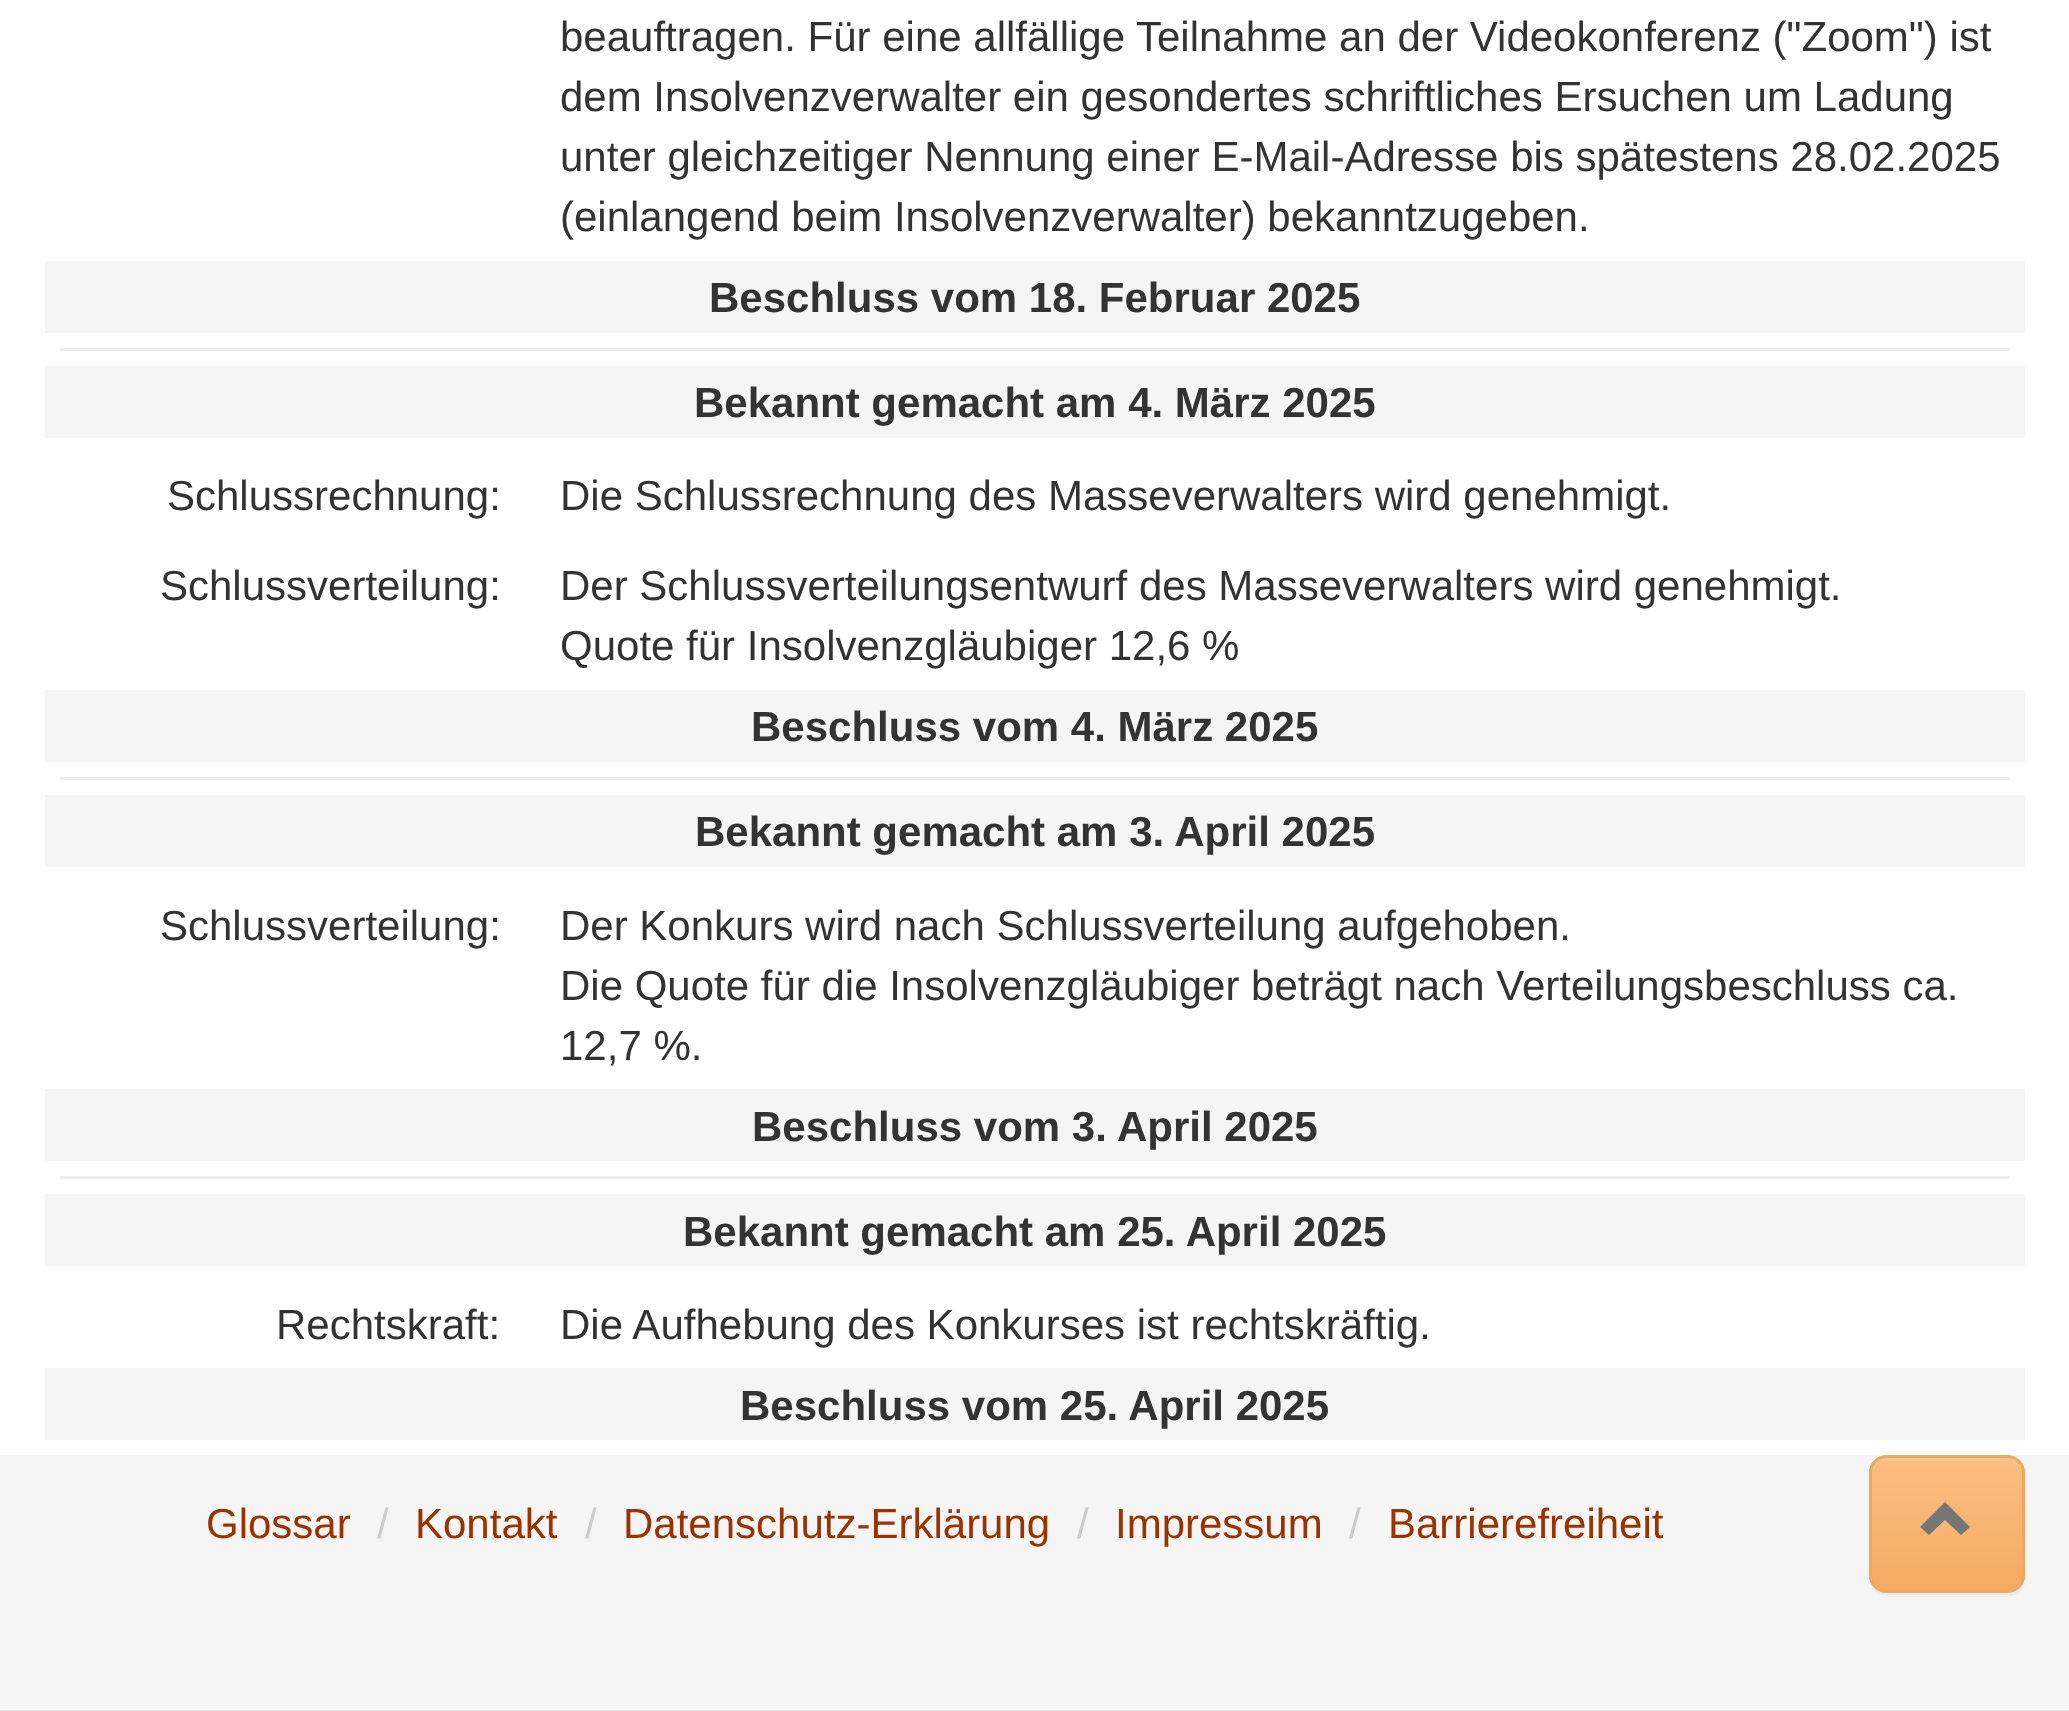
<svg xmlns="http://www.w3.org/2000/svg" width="2069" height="1711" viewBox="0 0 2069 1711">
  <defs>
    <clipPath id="clip1"><rect x="1869" y="1455" width="156" height="138" rx="18"/></clipPath>
    <linearGradient id="g1" gradientUnits="userSpaceOnUse" x1="1947" y1="1458" x2="1947" y2="1590"><stop offset="0" stop-color="rgb(251,190,129)"/><stop offset="1" stop-color="rgb(245,171,98)"/></linearGradient>
  </defs>
  <rect width="100%" height="100%" fill="rgb(255,255,255)"/>
  <g font-family="Liberation Sans" font-size="42" fill="rgb(51,51,51)">
    <text>
      <tspan x="560" y="51">beauftragen. Für eine allfällige Teilnahme an der Videokonferenz ("Zoom") ist</tspan>
      <tspan x="560" y="111">dem Insolvenzverwalter ein gesondertes schriftliches Ersuchen um Ladung</tspan>
      <tspan x="560" y="171">unter gleichzeitiger Nennung einer E-Mail-Adresse bis spätestens 28.02.2025</tspan>
      <tspan x="560" y="231">(einlangend beim Insolvenzverwalter) bekanntzugeben.</tspan>
    </text>
  </g>
  <rect x="45" y="261" width="1980" height="72" fill="rgb(245,245,245)"/>
  <text x="709" y="312" font-family="Liberation Sans" font-size="42" font-weight="bold" fill="rgb(51,51,51)">Beschluss vom 18. Februar 2025</text>
  <rect x="60" y="348" width="1950" height="3" fill="rgb(238,238,238)"/>
  <rect x="45" y="366" width="1980" height="72" fill="rgb(245,245,245)"/>
  <text x="694" y="417" font-family="Liberation Sans" font-size="42" font-weight="bold" fill="rgb(51,51,51)">Bekannt gemacht am 4. März 2025</text>
  <g font-family="Liberation Sans" font-size="42" fill="rgb(51,51,51)">
    <text x="167" y="510">Schlussrechnung:</text>
    <text x="560" y="510">Die Schlussrechnung des Masseverwalters wird genehmigt.</text>
    <text x="160" y="600">Schlussverteilung:</text>
    <text>
      <tspan x="560" y="600">Der Schlussverteilungsentwurf des Masseverwalters wird genehmigt.</tspan>
      <tspan x="560" y="660">Quote für Insolvenzgläubiger 12,6 %</tspan>
    </text>
  </g>
  <rect x="45" y="690" width="1980" height="72" fill="rgb(245,245,245)"/>
  <text x="751" y="741" font-family="Liberation Sans" font-size="42" font-weight="bold" fill="rgb(51,51,51)">Beschluss vom 4. März 2025</text>
  <rect x="60" y="777" width="1950" height="3" fill="rgb(238,238,238)"/>
  <rect x="45" y="795" width="1980" height="72" fill="rgb(245,245,245)"/>
  <text x="695" y="846" font-family="Liberation Sans" font-size="42" font-weight="bold" fill="rgb(51,51,51)">Bekannt gemacht am 3. April 2025</text>
  <g font-family="Liberation Sans" font-size="42" fill="rgb(51,51,51)">
    <text x="160" y="940">Schlussverteilung:</text>
    <text>
      <tspan x="560" y="940">Der Konkurs wird nach Schlussverteilung aufgehoben.</tspan>
      <tspan x="560" y="1000">Die Quote für die Insolvenzgläubiger beträgt nach Verteilungsbeschluss ca.</tspan>
      <tspan x="560" y="1060">12,7 %.</tspan>
    </text>
  </g>
  <rect x="45" y="1089" width="1980" height="72" fill="rgb(245,245,245)"/>
  <text x="752" y="1141" font-family="Liberation Sans" font-size="42" font-weight="bold" fill="rgb(51,51,51)">Beschluss vom 3. April 2025</text>
  <rect x="60" y="1176" width="1950" height="3" fill="rgb(238,238,238)"/>
  <rect x="45" y="1194" width="1980" height="72" fill="rgb(245,245,245)"/>
  <text x="683" y="1246" font-family="Liberation Sans" font-size="42" font-weight="bold" fill="rgb(51,51,51)">Bekannt gemacht am 25. April 2025</text>
  <g font-family="Liberation Sans" font-size="42" fill="rgb(51,51,51)">
    <text x="276" y="1339">Rechtskraft:</text>
    <text x="560" y="1339">Die Aufhebung des Konkurses ist rechtskräftig.</text>
  </g>
  <rect x="45" y="1368" width="1980" height="72" fill="rgb(245,245,245)"/>
  <text x="740" y="1420" font-family="Liberation Sans" font-size="42" font-weight="bold" fill="rgb(51,51,51)">Beschluss vom 25. April 2025</text>
  <rect x="0" y="1455" width="2069" height="255" fill="rgb(245,245,245)"/>
  <text x="206" y="1538" font-family="Liberation Sans" font-size="42" fill="rgb(153,51,0)">Glossar</text>
  <text x="377" y="1538" font-family="Liberation Sans" font-size="42" fill="rgb(204,204,204)">/</text>
  <text x="415" y="1538" font-family="Liberation Sans" font-size="42" fill="rgb(153,51,0)">Kontakt</text>
  <text x="585" y="1538" font-family="Liberation Sans" font-size="42" fill="rgb(204,204,204)">/</text>
  <text x="623" y="1538" font-family="Liberation Sans" font-size="42" fill="rgb(153,51,0)">Datenschutz-Erklärung</text>
  <text x="1077" y="1538" font-family="Liberation Sans" font-size="42" fill="rgb(204,204,204)">/</text>
  <text x="1115" y="1538" font-family="Liberation Sans" font-size="42" fill="rgb(153,51,0)">Impressum</text>
  <text x="1349" y="1538" font-family="Liberation Sans" font-size="42" fill="rgb(204,204,204)">/</text>
  <text x="1388" y="1538" font-family="Liberation Sans" font-size="42" fill="rgb(153,51,0)">Barrierefreiheit</text>
  <rect x="1869" y="1458" width="156" height="138" rx="18" fill="rgba(98,98,98,0.07)" filter="blur(1.5px)"/>
  <g clip-path="url(#clip1)">
    <rect x="1869" y="1458" width="156" height="132" fill="url(#g1)"/>
  </g>
  <path d="M1887 1461H2007C2015 1461 2022 1468 2022 1476C2022 1454 2004 1458 1987 1458H1907C1890 1458 1872 1454 1872 1476C1872 1468 1879 1461 1887 1461Z" fill="rgba(251,251,251,0.15)"/>
  <rect x="1870.5" y="1456.5" width="153" height="135" rx="16.5" fill="none" stroke="rgb(239,168,98)" stroke-width="3"/>
  <path d="M1970 1527L1961 1535L1945 1520L1929 1535L1920 1527L1945 1502Z" fill="rgb(118,118,118)"/>
  <rect x="0" y="1710" width="2069" height="1" fill="rgb(231,231,231)"/>
</svg>
